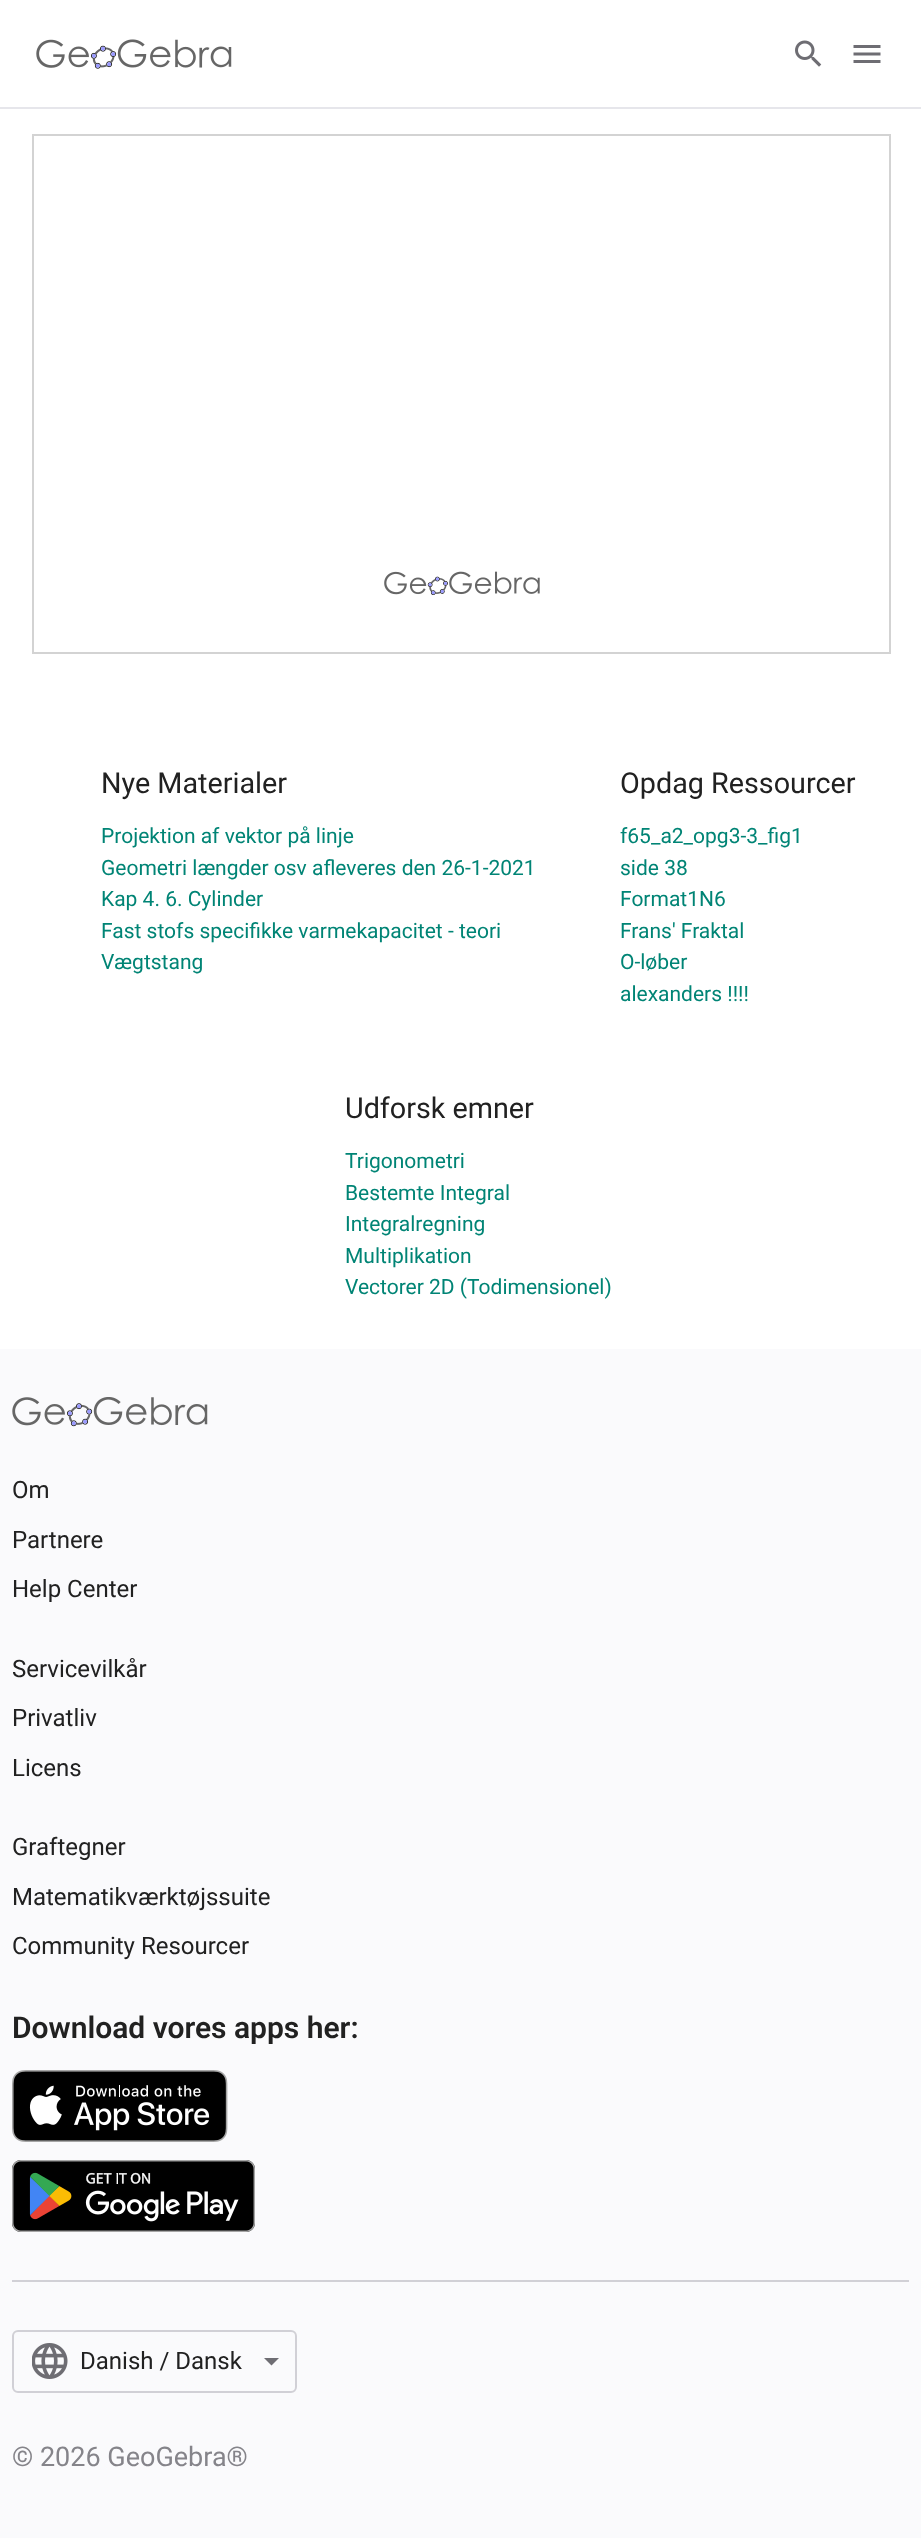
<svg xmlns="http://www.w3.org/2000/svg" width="921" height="2538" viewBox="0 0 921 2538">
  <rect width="100%" height="100%" fill="rgb(255,255,255)"/>
  <rect x="0" y="107" width="921" height="2" fill="rgb(230,230,235)"/>
  <image x="36" y="39" width="196" height="30" href="pic1.png"/>
  <image x="795" y="40" width="27" height="27" href="pic2.png"/>
  <image x="853" y="45" width="28" height="18" href="pic3.png"/>
  <image x="384" y="571" width="156" height="24" href="pic4.png"/>
  <rect x="33" y="135" width="857" height="518" fill="none" stroke="rgb(211,211,211)" stroke-width="2"/>
  <text x="101" y="793" font-family="Roboto" font-size="28.75" fill="rgb(33,33,33)">Nye Materialer</text>
  <g font-family="Roboto" font-size="21" fill="rgb(0,132,117)">
    <text>
      <tspan x="101" y="843">Projektion af vektor på linje</tspan>
      <tspan x="101" y="875">Geometri længder osv afleveres den 26-1-2021</tspan>
      <tspan x="101" y="906">Kap 4. 6. Cylinder</tspan>
      <tspan x="101" y="938">Fast stofs specifikke varmekapacitet - teori</tspan>
      <tspan x="101" y="969">Vægtstang</tspan>
    </text>
  </g>
  <text x="620" y="793" font-family="Roboto" font-size="28.75" fill="rgb(33,33,33)">Opdag Ressourcer</text>
  <g font-family="Roboto" font-size="21" fill="rgb(0,132,117)">
    <text>
      <tspan x="620" y="843">f65_a2_opg3-3_fig1</tspan>
      <tspan x="620" y="875">side 38</tspan>
      <tspan x="620" y="906">Format1N6</tspan>
      <tspan x="620" y="938">Frans' Fraktal</tspan>
      <tspan x="620" y="969">O-løber</tspan>
      <tspan x="620" y="1001">alexanders !!!!</tspan>
    </text>
  </g>
  <text x="345" y="1118" font-family="Roboto" font-size="28.75" fill="rgb(33,33,33)">Udforsk emner</text>
  <g font-family="Roboto" font-size="21" fill="rgb(0,132,117)">
    <text>
      <tspan x="345" y="1168">Trigonometri</tspan>
      <tspan x="345" y="1200">Bestemte Integral</tspan>
      <tspan x="345" y="1231">Integralregning</tspan>
      <tspan x="345" y="1263">Multiplikation</tspan>
      <tspan x="345" y="1294">Vectorer 2D (Todimensionel)</tspan>
    </text>
  </g>
  <rect x="0" y="1349" width="921" height="1189" fill="rgb(250,250,252)"/>
  <image x="12" y="1397" width="196" height="30" href="pic5.png"/>
  <g font-family="Roboto" font-size="24" fill="rgb(33,33,33)">
    <text x="12" y="1498">Om</text>
    <text x="12" y="1548">Partnere</text>
    <text x="12" y="1597">Help Center</text>
    <text x="12" y="1677">Servicevilkår</text>
    <text x="12" y="1726">Privatliv</text>
    <text x="12" y="1776">Licens</text>
    <text x="12" y="1855">Graftegner</text>
    <text x="12" y="1905">Matematikværktøjssuite</text>
    <text x="12" y="1954">Community Resourcer</text>
  </g>
  <text x="12" y="2038" font-family="Roboto" font-size="30" font-weight="600" fill="rgb(33,33,33)">Download vores apps her:</text>
  <image x="12" y="2070" width="216" height="72" href="pic6.png"/>
  <image x="12" y="2160" width="243" height="72" href="pic7.png"/>
  <rect x="12" y="2280" width="897" height="2" fill="rgb(209,208,214)"/>
  <rect x="13" y="2331" width="283" height="61" rx="5" fill="none" stroke="rgb(209,208,214)" stroke-width="2"/>
  <image x="32" y="2343" width="36" height="36" href="pic8.png"/>
  <text x="80" y="2369" font-family="Roboto" font-size="24" fill="rgb(33,33,33)">Danish / Dansk</text>
  <path d="M264 2358L271.5 2365.5L279 2358Z" fill="rgb(110,109,115)"/>
  <text x="12" y="2466" font-family="Roboto" font-size="27" fill="rgb(133,132,138)">© 2026 GeoGebra®</text>
</svg>
